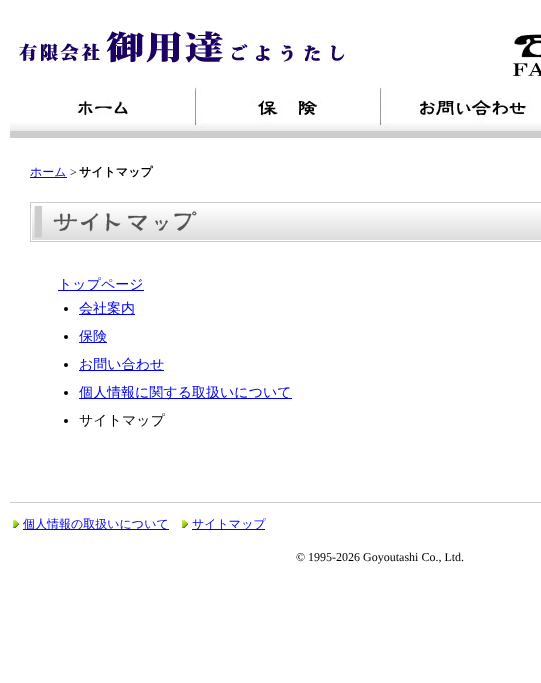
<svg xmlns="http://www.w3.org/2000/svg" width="541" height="683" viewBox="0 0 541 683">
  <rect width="100%" height="100%" fill="rgb(255,255,255)"/>
  <image x="18" y="31" width="328" height="32" href="pic1.png"/>
  <image x="513" y="34" width="28" height="42" href="pic2.png"/>
  <image x="10" y="99" width="185" height="39" href="pic3.png"/>
  <image x="195" y="84" width="185" height="54" href="pic4.png"/>
  <image x="380" y="84" width="161" height="54" href="pic5.png"/>
  <rect x="30" y="177" width="37" height="1" fill="rgb(0,0,238)"/>
  <text x="30" y="176" font-family="WenQuanYi Zen Hei" font-size="12" font-weight="500" fill="rgb(0,0,238)">ホーム</text>
  <text x="70" y="176" font-family="Liberation Serif" font-size="12" fill="rgb(0,0,0)">&gt;</text>
  <text x="79" y="176" font-family="WenQuanYi Zen Hei" font-size="12" font-weight="bold" fill="rgb(0,0,0)">サイトマップ</text>
  <image x="30" y="202" width="511" height="40" href="pic6.png"/>
  <rect x="58" y="290" width="86" height="1" fill="rgb(0,0,238)"/>
  <text x="58" y="289" font-family="WenQuanYi Zen Hei" font-size="14" font-weight="500" fill="rgb(0,0,238)">トップページ</text>
  <circle cx="66" cy="309" r="2" fill="rgb(0,0,0)"/>
  <rect x="79" y="314" width="56" height="1" fill="rgb(0,0,238)"/>
  <text x="79" y="313" font-family="WenQuanYi Zen Hei" font-size="14" font-weight="500" fill="rgb(0,0,238)">会社案内</text>
  <circle cx="66" cy="337" r="2" fill="rgb(0,0,0)"/>
  <rect x="79" y="342" width="28" height="1" fill="rgb(0,0,238)"/>
  <text x="79" y="341" font-family="WenQuanYi Zen Hei" font-size="14" font-weight="500" fill="rgb(0,0,238)">保険</text>
  <circle cx="66" cy="365" r="2" fill="rgb(0,0,0)"/>
  <rect x="79" y="370" width="85" height="1" fill="rgb(0,0,238)"/>
  <text x="79" y="369" font-family="WenQuanYi Zen Hei" font-size="14" font-weight="500" fill="rgb(0,0,238)">お問い合わせ</text>
  <circle cx="66" cy="393" r="2" fill="rgb(0,0,0)"/>
  <rect x="79" y="398" width="213" height="1" fill="rgb(0,0,238)"/>
  <text x="79" y="397" font-family="WenQuanYi Zen Hei" font-size="14" font-weight="500" fill="rgb(0,0,238)">個人情報に関する取扱いについて</text>
  <circle cx="66" cy="421" r="2" fill="rgb(0,0,0)"/>
  <text x="79" y="425" font-family="WenQuanYi Zen Hei" font-size="14" font-weight="500" fill="rgb(0,0,0)">サイトマップ</text>
  <rect x="10" y="502" width="531" height="1" fill="rgb(204,204,204)"/>
  <image x="13" y="520" width="6" height="8" href="pic7.png"/>
  <rect x="23" y="529" width="146" height="1" fill="rgb(0,0,238)"/>
  <text x="23" y="528" font-family="WenQuanYi Zen Hei" font-size="12" font-weight="500" fill="rgb(0,0,238)">個人情報の取扱いについて</text>
  <image x="182" y="520" width="6" height="8" href="pic7.png"/>
  <rect x="192" y="529" width="73" height="1" fill="rgb(0,0,238)"/>
  <text x="192" y="528" font-family="WenQuanYi Zen Hei" font-size="12" font-weight="500" fill="rgb(0,0,238)">サイトマップ</text>
  <text x="296" y="561" font-family="Liberation Serif" font-size="12" fill="rgb(0,0,0)">© 1995-2026 Goyoutashi Co., Ltd.</text>
</svg>
